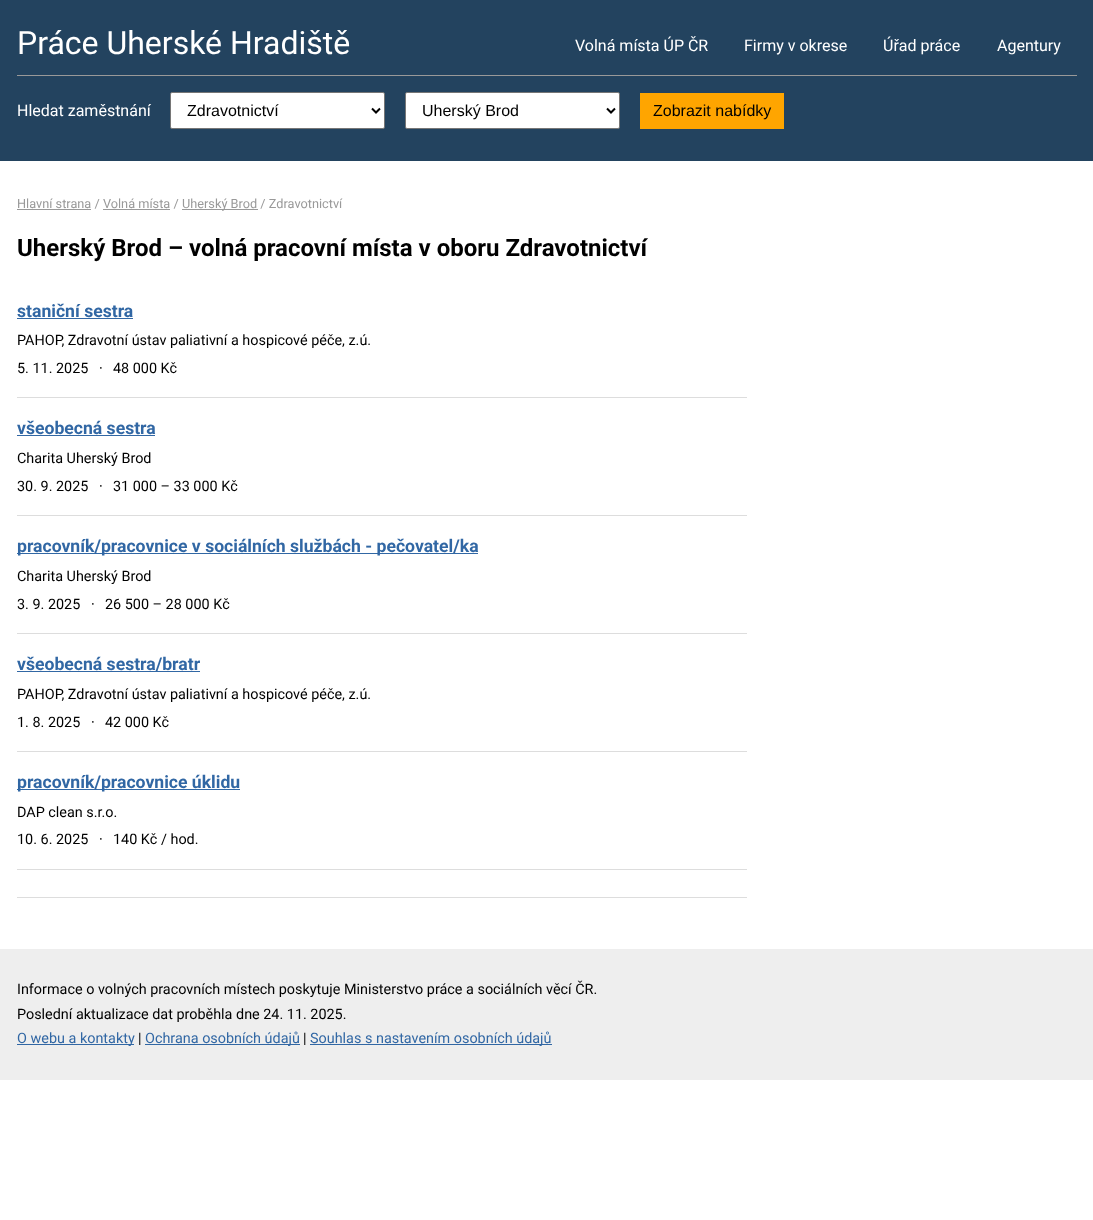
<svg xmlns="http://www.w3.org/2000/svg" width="1093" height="1220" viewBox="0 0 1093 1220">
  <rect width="100%" height="100%" fill="rgb(255,255,255)"/>
  <rect x="0" y="0" width="1093" height="161" fill="rgb(35,67,95)"/>
  <text x="17" y="54" font-family="Roboto" font-size="32" fill="rgb(255,255,255)">Práce Uherské Hradiště</text>
  <g font-family="Roboto" font-size="16" fill="rgb(255,255,255)">
    <text x="575" y="51">Volná místa ÚP ČR</text>
    <text x="744" y="51">Firmy v okrese</text>
    <text x="883" y="51">Úřad práce</text>
    <text x="997" y="51">Agentury</text>
  </g>
  <rect x="17" y="75" width="1060" height="1" fill="rgb(153,153,153)"/>
  <text x="17" y="116" font-family="Roboto" font-size="16" fill="rgb(255,255,255)">Hledat zaměstnání</text>
  <rect x="170.5" y="92.5" width="214" height="36" rx="1.5" fill="rgb(255,255,255)" stroke="rgb(118,118,118)"/>
  <path d="M372 108.5L376 112.5L380 108.5" fill="none" stroke="rgb(0,0,0)" stroke-width="2"/>
  <text x="187" y="116" font-family="Liberation Sans" font-size="16" fill="rgb(0,0,0)">Zdravotnictví</text>
  <rect x="405.5" y="92.5" width="214" height="36" rx="1.5" fill="rgb(255,255,255)" stroke="rgb(118,118,118)"/>
  <path d="M607 108.5L611 112.5L615 108.5" fill="none" stroke="rgb(0,0,0)" stroke-width="2"/>
  <text x="422" y="116" font-family="Liberation Sans" font-size="16" fill="rgb(0,0,0)">Uherský Brod</text>
  <rect x="640" y="93" width="144" height="36" fill="rgb(255,165,0)"/>
  <text x="653" y="116" font-family="Liberation Sans" font-size="16" fill="rgb(0,0,0)">Zobrazit nabídky</text>
  <text x="17" y="208" font-family="Roboto" font-size="12.75" fill="rgb(153,153,153)">Hlavní strana / Volná místa /</text>
  <rect x="17" y="209" width="74" height="1" fill="rgb(153,153,153)"/>
  <rect x="182" y="209" width="76" height="1" fill="rgb(153,153,153)"/>
  <text x="182" y="208" font-family="Roboto" font-size="12.75" fill="rgb(153,153,153)">Uherský Brod / Zdravotnictví</text>
  <rect x="103" y="209" width="67" height="1" fill="rgb(153,153,153)"/>
  <text x="17" y="256" font-family="Roboto" font-size="24" font-weight="bold" fill="rgb(0,0,0)">Uherský Brod – volná pracovní místa v oboru Zdravotnictví</text>
  <rect x="17" y="397" width="730" height="1" fill="rgb(221,221,221)"/>
  <text x="17" y="317" font-family="Roboto" font-size="17.6" font-weight="bold" fill="rgb(49,103,164)">staniční sestra</text>
  <rect x="17" y="318" width="116" height="1" fill="rgb(49,103,164)"/>
  <g font-family="Roboto" font-size="14.4" fill="rgb(0,0,0)">
    <text>
      <tspan x="17" y="345">PAHOP, Zdravotní ústav paliativní a hospicové péče, z.ú.</tspan>
      <tspan x="17" y="373">5. 11. 2025</tspan>
    </text>
    <text x="99" y="373">·</text>
    <text x="113" y="373">48 000 Kč</text>
  </g>
  <rect x="17" y="515" width="730" height="1" fill="rgb(221,221,221)"/>
  <text x="17" y="434" font-family="Roboto" font-size="17.6" font-weight="bold" fill="rgb(49,103,164)">všeobecná sestra</text>
  <rect x="17" y="435" width="138" height="1" fill="rgb(49,103,164)"/>
  <g font-family="Roboto" font-size="14.4" fill="rgb(0,0,0)">
    <text>
      <tspan x="17" y="463">Charita Uherský Brod</tspan>
      <tspan x="17" y="491">30. 9. 2025</tspan>
    </text>
    <text x="99" y="491">·</text>
    <text x="113" y="491">31 000 – 33 000 Kč</text>
  </g>
  <rect x="17" y="633" width="730" height="1" fill="rgb(221,221,221)"/>
  <rect x="17" y="553" width="461" height="1" fill="rgb(49,103,164)"/>
  <text x="17" y="552" font-family="Roboto" font-size="17.6" font-weight="bold" fill="rgb(49,103,164)">pracovník/pracovnice v sociálních službách - pečovatel/ka</text>
  <g font-family="Roboto" font-size="14.4" fill="rgb(0,0,0)">
    <text>
      <tspan x="17" y="581">Charita Uherský Brod</tspan>
      <tspan x="17" y="609">3. 9. 2025</tspan>
    </text>
    <text x="91" y="609">·</text>
    <text x="105" y="609">26 500 – 28 000 Kč</text>
  </g>
  <rect x="17" y="751" width="730" height="1" fill="rgb(221,221,221)"/>
  <rect x="17" y="671" width="183" height="1" fill="rgb(49,103,164)"/>
  <text x="17" y="670" font-family="Roboto" font-size="17.6" font-weight="bold" fill="rgb(49,103,164)">všeobecná sestra/bratr</text>
  <g font-family="Roboto" font-size="14.4" fill="rgb(0,0,0)">
    <text>
      <tspan x="17" y="699">PAHOP, Zdravotní ústav paliativní a hospicové péče, z.ú.</tspan>
      <tspan x="17" y="727">1. 8. 2025</tspan>
    </text>
    <text x="91" y="727">·</text>
    <text x="105" y="727">42 000 Kč</text>
  </g>
  <rect x="17" y="869" width="730" height="1" fill="rgb(221,221,221)"/>
  <rect x="17" y="789" width="223" height="1" fill="rgb(49,103,164)"/>
  <text x="17" y="788" font-family="Roboto" font-size="17.6" font-weight="bold" fill="rgb(49,103,164)">pracovník/pracovnice úklidu</text>
  <g font-family="Roboto" font-size="14.4" fill="rgb(0,0,0)">
    <text>
      <tspan x="17" y="817">DAP clean s.r.o.</tspan>
      <tspan x="17" y="844">10. 6. 2025</tspan>
    </text>
    <text x="99" y="844">·</text>
    <text x="113" y="844">140 Kč / hod.</text>
  </g>
  <rect x="17" y="897" width="730" height="1" fill="rgb(221,221,221)"/>
  <rect x="0" y="949" width="1093" height="131" fill="rgb(238,238,238)"/>
  <g font-family="Roboto" font-size="14.4" fill="rgb(0,0,0)">
    <text>
      <tspan x="17" y="994">Informace o volných pracovních místech poskytuje Ministerstvo práce a sociálních věcí ČR.</tspan>
      <tspan x="17" y="1019">Poslední aktualizace dat proběhla dne 24. 11. 2025.</tspan>
    </text>
  </g>
  <rect x="17" y="1044" width="117" height="1" fill="rgb(49,103,164)"/>
  <text x="17" y="1043" font-family="Roboto" font-size="14.4" fill="rgb(49,103,164)">O webu a kontakty</text>
  <text x="138" y="1043" font-family="Roboto" font-size="14.4" fill="rgb(0,0,0)">|</text>
  <rect x="145" y="1044" width="155" height="1" fill="rgb(49,103,164)"/>
  <text x="145" y="1043" font-family="Roboto" font-size="14.4" fill="rgb(49,103,164)">Ochrana osobních údajů</text>
  <text x="303" y="1043" font-family="Roboto" font-size="14.4" fill="rgb(0,0,0)">|</text>
  <rect x="310" y="1044" width="242" height="1" fill="rgb(49,103,164)"/>
  <text x="310" y="1043" font-family="Roboto" font-size="14.4" fill="rgb(49,103,164)">Souhlas s nastavením osobních údajů</text>
</svg>
